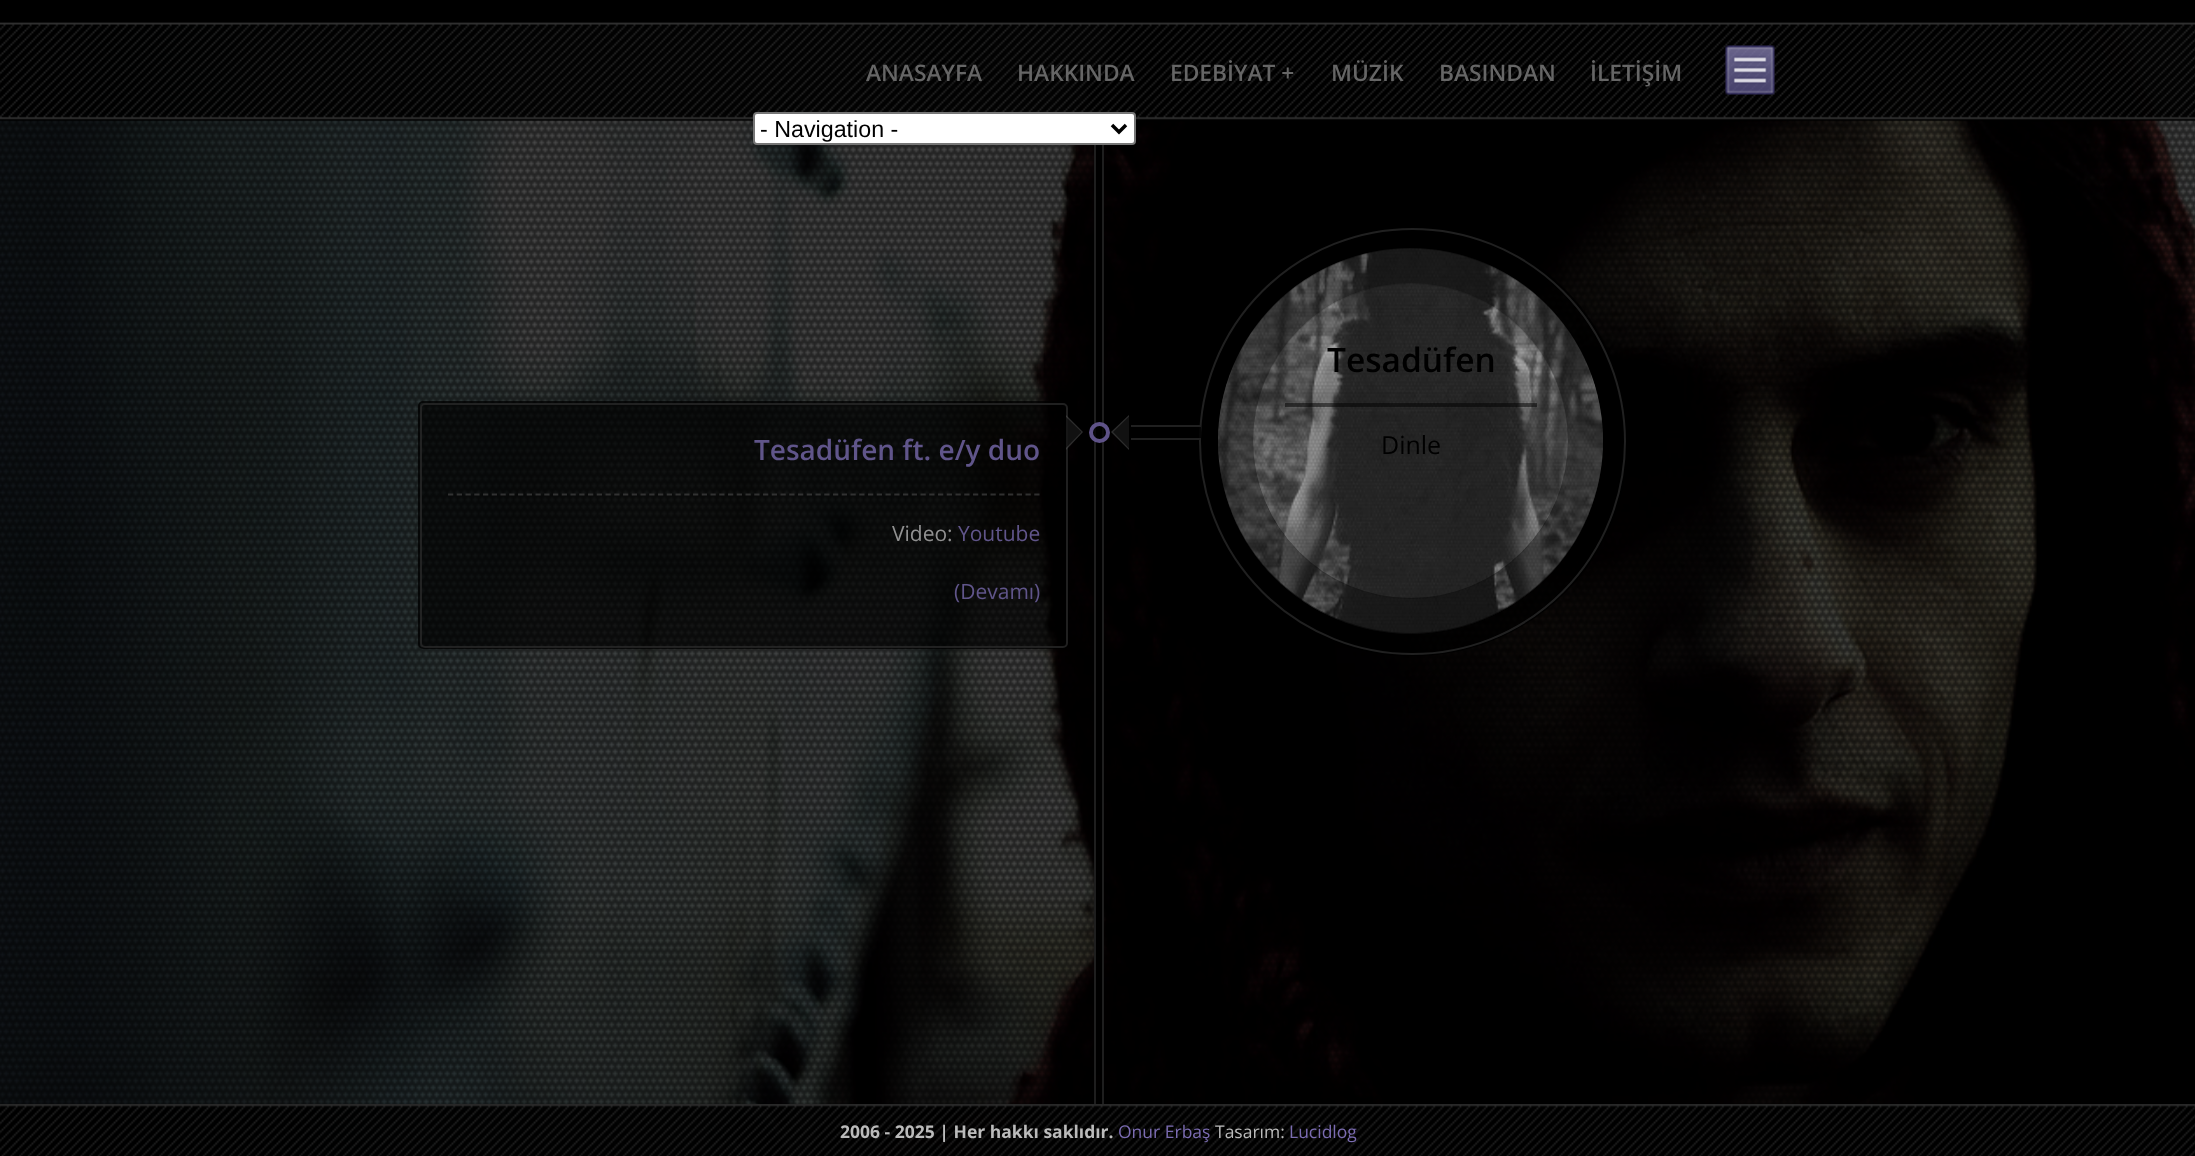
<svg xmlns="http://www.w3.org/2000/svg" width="2195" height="1156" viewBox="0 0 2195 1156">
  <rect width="100%" height="100%" fill="rgb(0,0,0)"/>
  <image x="0" y="24" width="2195" height="1132" href="pic2.png"/>
  <image x="0" y="24" width="2195" height="1132" href="pic3.png"/>
  <rect x="1096" y="145" width="6" height="930" fill="rgb(0,0,0)"/>
  <rect x="1095" y="122" width="8" height="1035" fill="none" stroke="rgb(30,30,30)" stroke-width="2"/>
  <image x="0" y="0" width="2195" height="122" href="pic1.png"/>
  <g font-family="Open Sans" font-size="22.75" font-weight="600" fill="rgb(102,102,102)">
    <text x="866" y="81">ANASAYFA</text>
    <text x="1017" y="81">HAKKINDA</text>
    <text x="1170" y="81">EDEBİYAT +</text>
    <text x="1331" y="81">MÜZİK</text>
    <text x="1439" y="81">BASINDAN</text>
    <text x="1590" y="81">İLETİŞİM</text>
  </g>
  <image x="1724" y="45" width="52" height="50" href="pic4.png"/>
  <rect x="754" y="113" width="381" height="31" rx="3" fill="rgb(255,255,255)" stroke="rgb(118,118,118)" stroke-width="2"/>
  <path d="M1112 125L1119 132L1126 125" fill="none" stroke="rgb(0,0,0)" stroke-width="3.5"/>
  <text x="760" y="137" font-family="Liberation Sans" font-size="23.25" fill="rgb(0,0,0)">- Navigation -</text>
  <circle cx="1099.5" cy="432.5" r="10.5" fill="rgba(0,0,0,0.76)"/>
  <circle cx="1099.5" cy="432.5" r="8.5" fill="none" stroke="rgba(123,108,178,0.76)" stroke-width="4"/>
  <path d="M1129 415V450L1111 432Z" fill="rgba(73,73,73,0.61)"/>
  <path d="M1130.5 415V450L1113 432Z" fill="rgba(0,0,0,0.61)"/>
  <rect x="1198" y="227" width="429" height="428" rx="214" fill="none" stroke="rgba(0,0,0,0.76)" stroke-width="2"/>
  <circle cx="1412.5" cy="441.5" r="213.5" fill="rgba(0,0,0,0.67)"/>
  <circle cx="1412.5" cy="441.5" r="212.5" fill="none" stroke="rgba(42,42,42,0.76)" stroke-width="2"/>
  <rect x="1199" y="427" width="2" height="11" fill="rgba(0,0,0,0.8)"/>
  <rect x="1131" y="425" width="70" height="2" fill="rgb(32,32,32)"/>
  <rect x="1131" y="438" width="70" height="2" fill="rgb(32,32,32)"/>
  <image x="1218" y="248" width="385" height="386" href="pic5.png"/>
  <circle cx="1410.5" cy="441.5" r="175" fill="none" stroke="rgba(0,0,0,0.3)" stroke-width="35"/>
  <circle cx="1410.5" cy="441.5" r="157.5" fill="rgba(0,0,0,0.76)"/>
  <image x="1253" y="283" width="315" height="316" href="pic6.png"/>
  <rect x="1285" y="403" width="252" height="4" fill="rgba(0,0,0,0.5)"/>
  <text x="1327" y="372" font-family="Open Sans" font-size="33.5" font-weight="600" fill="rgb(0,0,0)">Tesadüfen</text>
  <text x="1381" y="454" font-family="Open Sans" font-size="25" fill="rgb(0,0,0)">Dinle</text>
  <rect x="419" y="402" width="649" height="246" rx="4" fill="none" stroke="rgba(0,0,0,0.76)" stroke-width="2"/>
  <rect x="420" y="403" width="648" height="245" rx="5" fill="rgba(0,0,0,0.67)"/>
  <rect x="421" y="404" width="646" height="243" rx="4" fill="none" stroke="rgba(42,42,42,0.76)" stroke-width="2"/>
  <path d="M1066 450V415L1083 432Z" fill="rgba(73,73,73,0.61)"/>
  <path d="M1064 450V415L1081.5 432Z" fill="rgba(0,0,0,0.61)"/>
  <path d="M448 494.5H1039.5" fill="none" stroke="rgba(63,63,63,0.76)" stroke-width="1.8" stroke-dasharray="5.25 3.5"/>
  <text x="754" y="460" font-family="Open Sans" font-size="28" font-weight="600" fill="rgb(96,85,138)">Tesadüfen ft. e/y duo</text>
  <text x="892" y="541" font-family="Open Sans" font-size="21" fill="rgb(145,145,145)">Video:</text>
  <g font-family="Open Sans" font-size="21" fill="rgb(96,85,138)">
    <text x="958" y="541">Youtube</text>
    <text x="954" y="599">(Devamı)</text>
  </g>
  <image x="0" y="1104" width="2195" height="52" href="pic7.png"/>
  <text x="840" y="1138" font-family="Open Sans" font-size="17.5" font-weight="bold" fill="rgb(187,187,187)">2006 - 2025 | Her hakkı saklıdır.</text>
  <text x="1118" y="1138" font-family="Open Sans" font-size="17.5" fill="rgb(123,108,178)">Onur Erbaş</text>
  <text x="1215" y="1138" font-family="Open Sans" font-size="17.5" fill="rgb(187,187,187)">Tasarım:</text>
  <text x="1289" y="1138" font-family="Open Sans" font-size="17.5" fill="rgb(123,108,178)">Lucidlog</text>
</svg>
